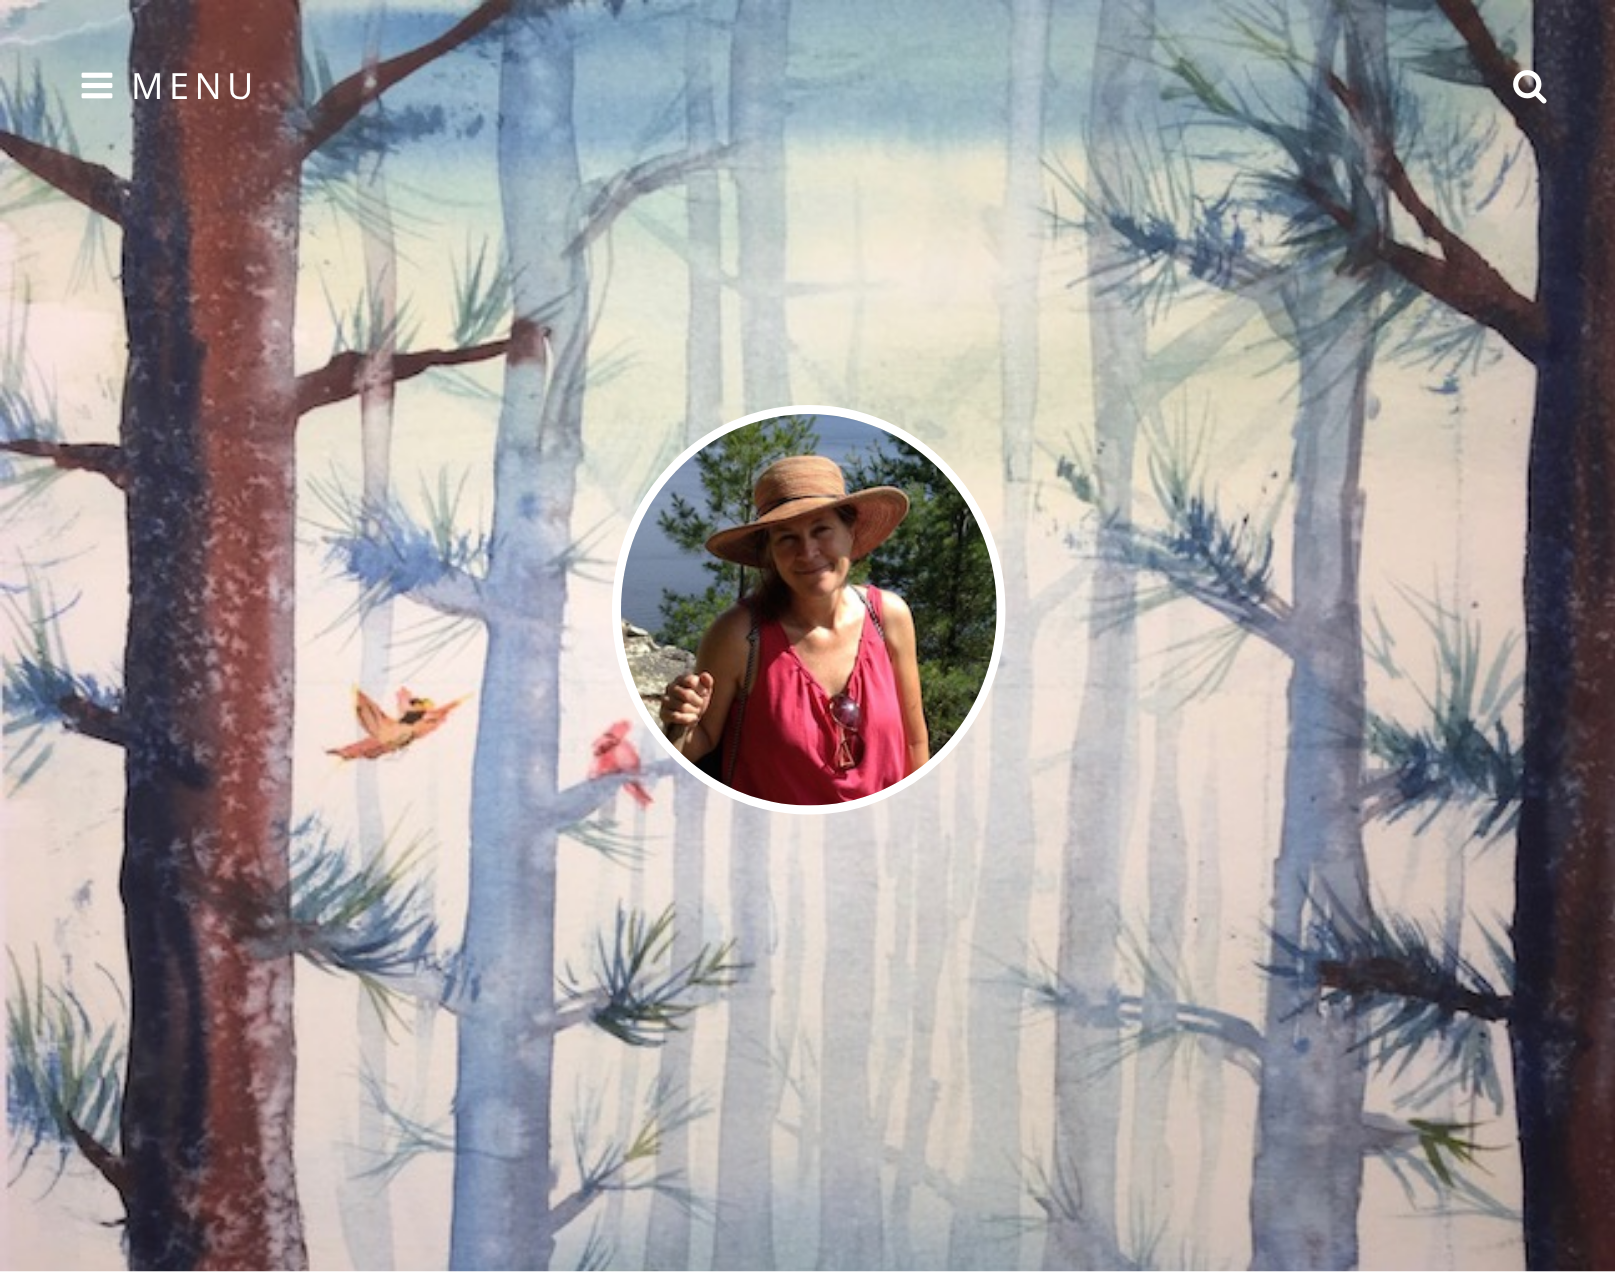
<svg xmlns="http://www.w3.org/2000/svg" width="1615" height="1285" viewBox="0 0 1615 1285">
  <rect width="100%" height="100%" fill="rgb(255,255,255)"/>
  <image x="0" y="0" width="1615" height="1272" href="pic1.png"/>
  <path d="M809 409.5C915 409.5 1001 499 1001 610C1001 720.5 915 810 809 810C702.5 810 616.5 720.5 616.5 610C616.5 499 702.5 409.5 809 409.5Z" fill="none" stroke="rgb(255,255,255)" stroke-width="9"/>
  <image x="621" y="414" width="376" height="392" href="pic2.png"/>
  <image x="81" y="72" width="32" height="27" href="pic3.png"/>
  <text x="131" y="99" font-family="Open Sans" font-size="36" letter-spacing="5.5" fill="rgb(255,255,255)">MENU</text>
  <image x="1513" y="70" width="34" height="34" href="pic4.png"/>
</svg>
